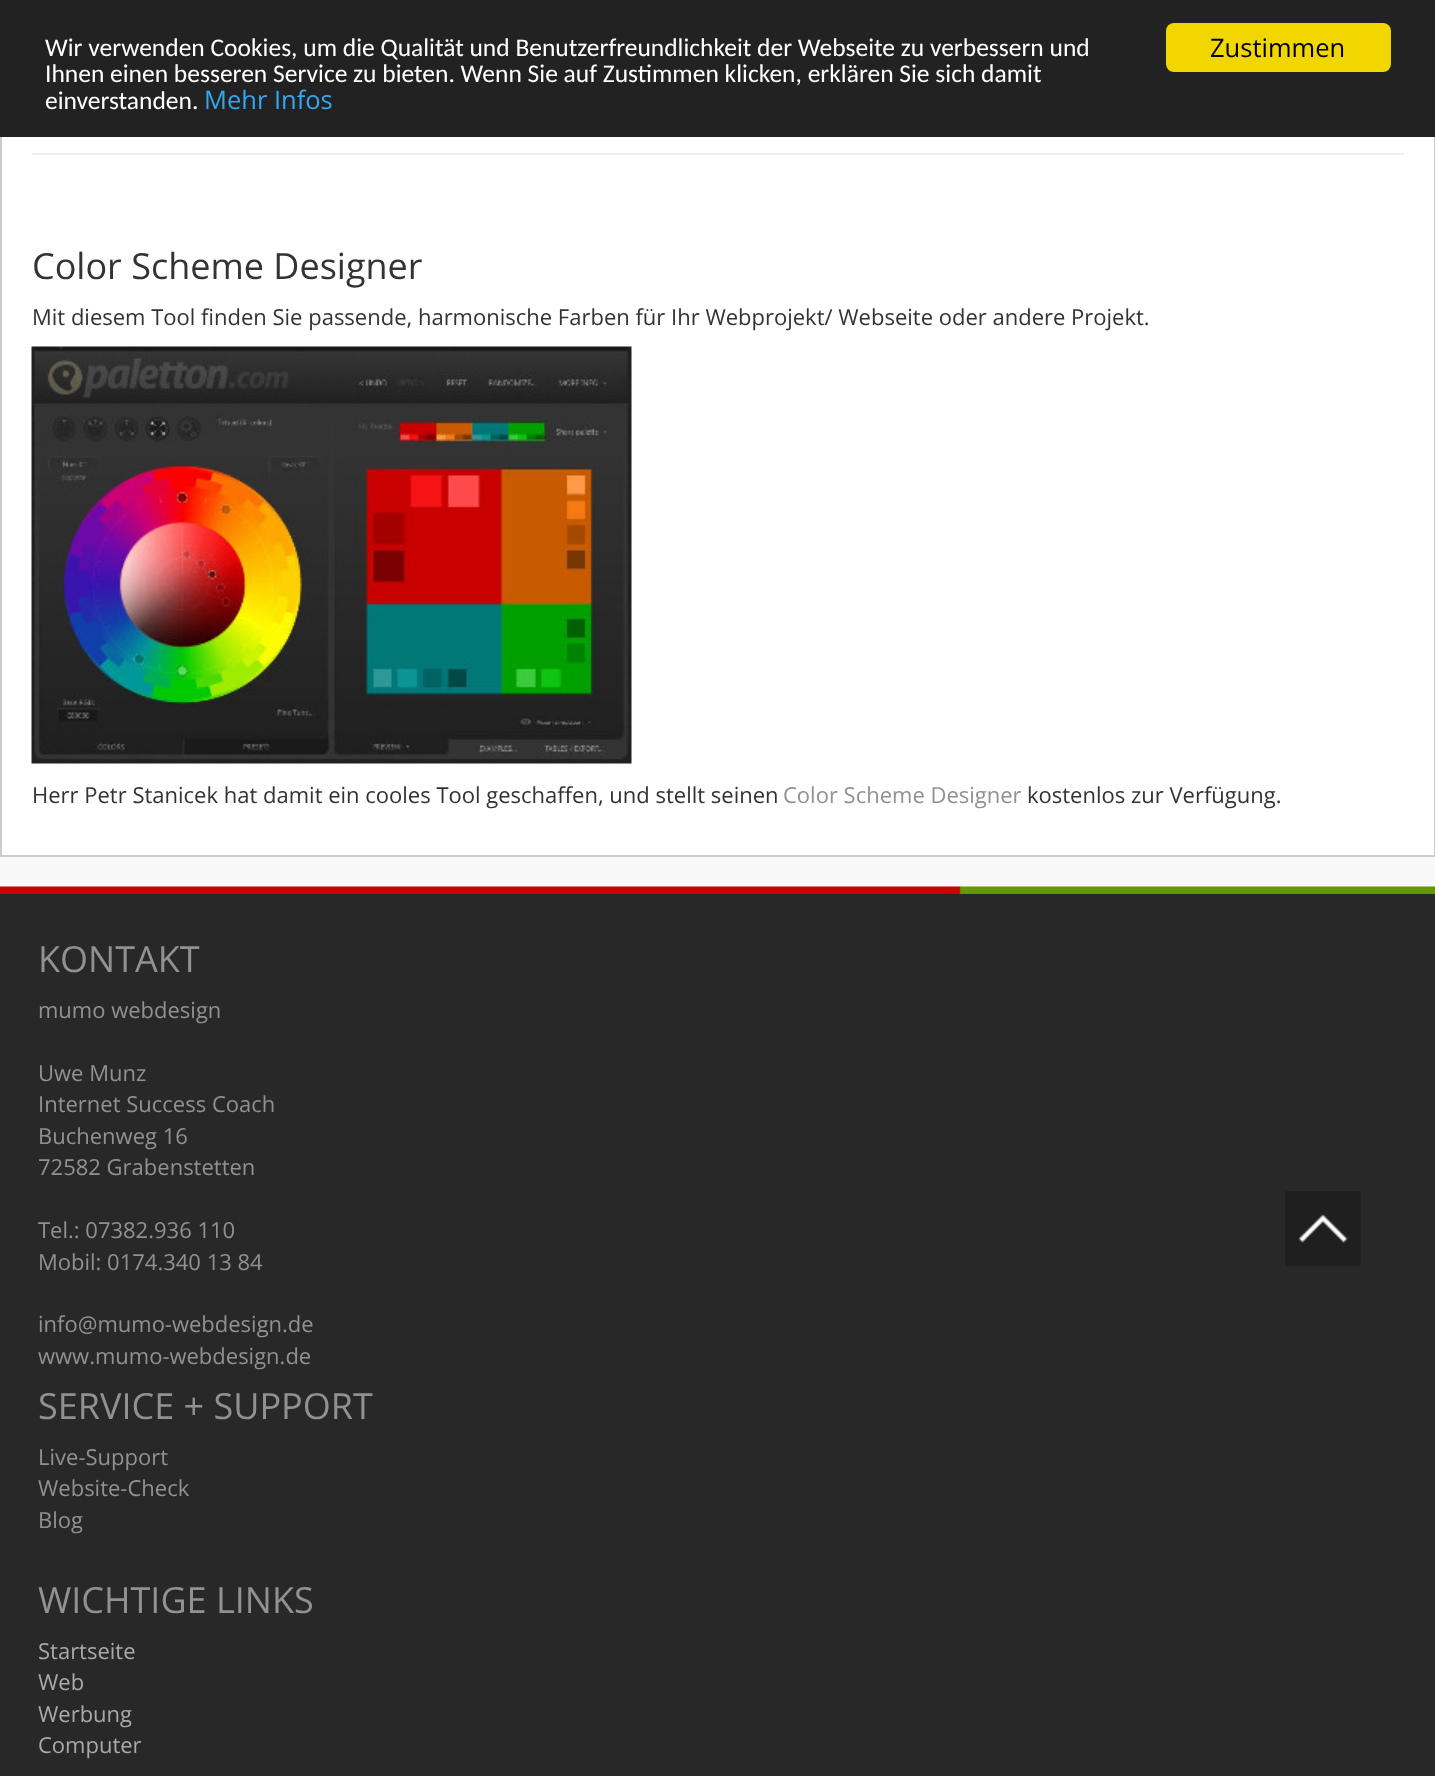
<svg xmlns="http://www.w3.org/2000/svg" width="1435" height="1776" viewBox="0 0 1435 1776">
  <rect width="100%" height="100%" fill="rgb(248,248,248)"/>
  <rect x="2" y="137" width="1432" height="718" fill="rgb(255,255,255)"/>
  <rect x="1" y="-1" width="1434" height="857" fill="none" stroke="rgb(204,204,204)" stroke-width="2"/>
  <rect x="0" y="0" width="1435" height="137" fill="rgb(34,34,34)"/>
  <g font-family="Carlito" font-size="25.5" fill="rgb(255,255,255)">
    <text>
      <tspan x="45" y="56">Wir verwenden Cookies, um die Qualität und Benutzerfreundlichkeit der Webseite zu verbessern und</tspan>
      <tspan x="45" y="82">Ihnen einen besseren Service zu bieten. Wenn Sie auf Zustimmen klicken, erklären Sie sich damit</tspan>
      <tspan x="45" y="109">einverstanden.</tspan>
    </text>
  </g>
  <text x="204" y="109" font-family="Open Sans" font-size="25.5" fill="rgb(49,168,240)">Mehr Infos</text>
  <rect x="1166" y="23" width="225" height="49" rx="8" fill="rgb(241,214,0)"/>
  <text x="1210" y="57" font-family="Open Sans" font-size="25.5" fill="rgb(0,0,0)">Zustimmen</text>
  <rect x="32" y="153" width="1372" height="2" fill="rgb(238,238,238)"/>
  <text x="32" y="279" font-family="Open Sans" font-size="36" fill="rgb(51,51,51)">Color Scheme Designer</text>
  <text x="32" y="325" font-family="Open Sans" font-size="22" fill="rgb(51,51,51)">Mit diesem Tool finden Sie passende, harmonische Farben für Ihr Webprojekt/ Webseite oder andere Projekt.</text>
  <image x="31" y="346" width="601" height="418" href="pic1.png"/>
  <text x="32" y="803" font-family="Open Sans" font-size="22" fill="rgb(51,51,51)">Herr Petr Stanicek hat damit ein cooles Tool geschaffen, und stellt seinen</text>
  <text x="783" y="803" font-family="Open Sans" font-size="22" fill="rgb(145,145,145)">Color Scheme Designer</text>
  <text x="1027" y="803" font-family="Open Sans" font-size="22" fill="rgb(51,51,51)">kostenlos zur Verfügung.</text>
  <rect x="0" y="894" width="1435" height="882" fill="rgb(40,40,40)"/>
  <image x="1285" y="1191" width="76" height="75" href="pic2.png"/>
  <image x="0" y="886" width="1435" height="8" href="pic3.png"/>
  <text x="38" y="972" font-family="Open Sans" font-size="36" fill="rgb(145,145,145)">KONTAKT</text>
  <g font-family="Open Sans" font-size="22" fill="rgb(145,145,145)">
    <text x="38" y="1018">mumo webdesign</text>
    <text>
      <tspan x="38" y="1081">Uwe Munz</tspan>
      <tspan x="38" y="1112">Internet Success Coach</tspan>
      <tspan x="38" y="1144">Buchenweg 16</tspan>
      <tspan x="38" y="1175">72582 Grabenstetten</tspan>
    </text>
    <text>
      <tspan x="38" y="1238">Tel.: 07382.936 110</tspan>
      <tspan x="38" y="1270">Mobil: 0174.340 13 84</tspan>
    </text>
    <text>
      <tspan x="38" y="1332">info@mumo-webdesign.de</tspan>
      <tspan x="38" y="1364">www.mumo-webdesign.de</tspan>
    </text>
  </g>
  <text x="38" y="1419" font-family="Open Sans" font-size="36" fill="rgb(145,145,145)">SERVICE + SUPPORT</text>
  <g font-family="Open Sans" font-size="22" fill="rgb(145,145,145)">
    <text>
      <tspan x="38" y="1465">Live-Support</tspan>
      <tspan x="38" y="1496">Website-Check</tspan>
      <tspan x="38" y="1528">Blog</tspan>
    </text>
  </g>
  <text x="38" y="1613" font-family="Open Sans" font-size="36" fill="rgb(145,145,145)">WICHTIGE LINKS</text>
  <g font-family="Open Sans" font-size="22" fill="rgb(169,169,169)">
    <text>
      <tspan x="38" y="1659">Startseite</tspan>
      <tspan x="38" y="1690">Web</tspan>
      <tspan x="38" y="1722">Werbung</tspan>
      <tspan x="38" y="1753">Computer</tspan>
    </text>
  </g>
</svg>
